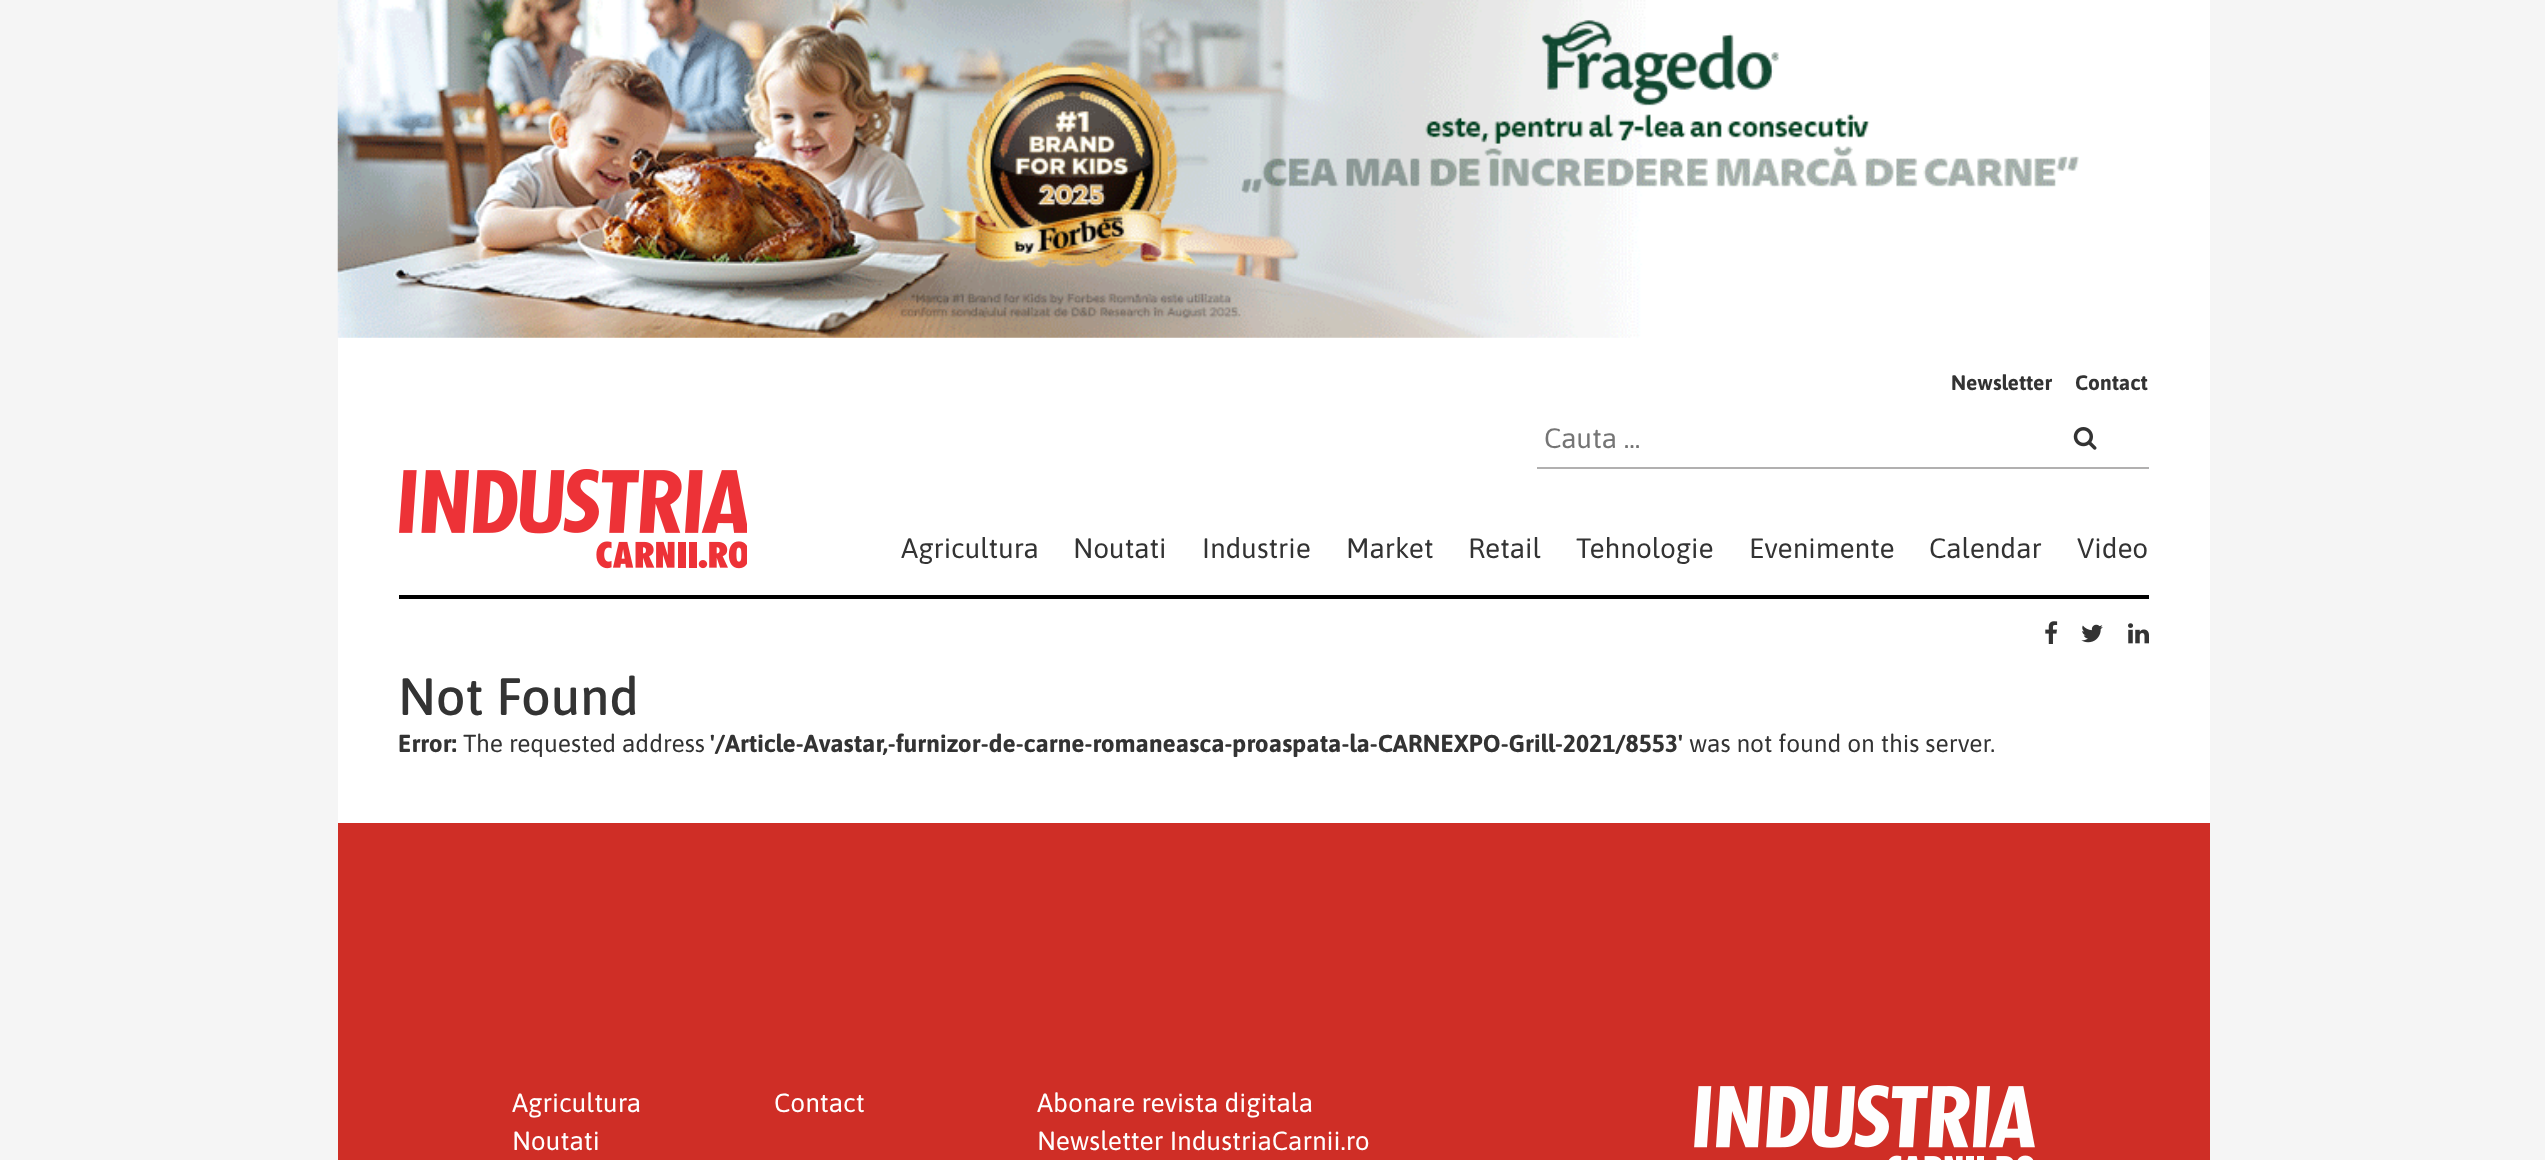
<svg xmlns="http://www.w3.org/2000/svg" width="2545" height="1160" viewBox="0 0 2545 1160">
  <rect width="100%" height="100%" fill="rgb(245,245,245)"/>
  <rect x="338" y="0" width="1872" height="823" fill="rgb(255,255,255)"/>
  <image x="337" y="0" width="1742" height="338" href="pic1.png"/>
  <g font-family="Asap" font-size="21" font-weight="bold" fill="rgb(51,51,51)">
    <text x="1951" y="390">Newsletter</text>
    <text x="2075" y="390">Contact</text>
  </g>
  <rect x="1537" y="467" width="612" height="2" fill="rgb(177,176,176)"/>
  <text x="1544" y="448" font-family="Asap" font-size="28" fill="rgb(117,117,117)">Cauta ...</text>
  <image x="2073" y="427" width="24" height="23" href="pic2.png"/>
  <rect x="399" y="595" width="1750" height="4" fill="rgb(0,0,0)"/>
  <image x="399" y="469" width="348" height="100" href="pic3.png"/>
  <g font-family="Asap" font-size="28" fill="rgb(51,51,51)">
    <text x="901" y="558">Agricultura</text>
    <text x="1073" y="558">Noutati</text>
    <text x="1202" y="558">Industrie</text>
    <text x="1346" y="558">Market</text>
    <text x="1468" y="558">Retail</text>
    <text x="1576" y="558">Tehnologie</text>
    <text x="1749" y="558">Evenimente</text>
    <text x="1929" y="558">Calendar</text>
    <text x="2077" y="558">Video</text>
  </g>
  <image x="2045" y="621" width="13" height="23" href="pic4.png"/>
  <image x="2081" y="624" width="22" height="19" href="pic5.png"/>
  <image x="2128" y="623" width="21" height="21" href="pic6.png"/>
  <text x="398" y="715" font-family="Asap" font-size="52.5" font-weight="500" fill="rgb(51,51,51)">Not Found</text>
  <text x="398" y="752" font-family="Asap" font-size="24.5" font-weight="bold" fill="rgb(51,51,51)">Error:</text>
  <text x="463" y="752" font-family="Asap" font-size="24.5" fill="rgb(51,51,51)">The requested address</text>
  <text x="710" y="752" font-family="Asap" font-size="24.5" font-weight="bold" fill="rgb(51,51,51)">'/Article-Avastar,-furnizor-de-carne-romaneasca-proaspata-la-CARNEXPO-Grill-2021/8553'</text>
  <text x="1689" y="752" font-family="Asap" font-size="24.5" fill="rgb(51,51,51)">was not found on this server.</text>
  <rect x="338" y="823" width="1872" height="337" fill="rgb(207,46,38)"/>
  <g font-family="Asap" font-size="26.25" fill="rgb(255,255,255)">
    <text>
      <tspan x="512" y="1112">Agricultura</tspan>
      <tspan x="512" y="1150">Noutati</tspan>
    </text>
    <text x="774" y="1112">Contact</text>
    <text>
      <tspan x="1037" y="1112">Abonare revista digitala</tspan>
      <tspan x="1037" y="1150">Newsletter IndustriaCarnii.ro</tspan>
    </text>
  </g>
  <image x="1694" y="1085" width="341" height="75" href="pic7.png"/>
</svg>
